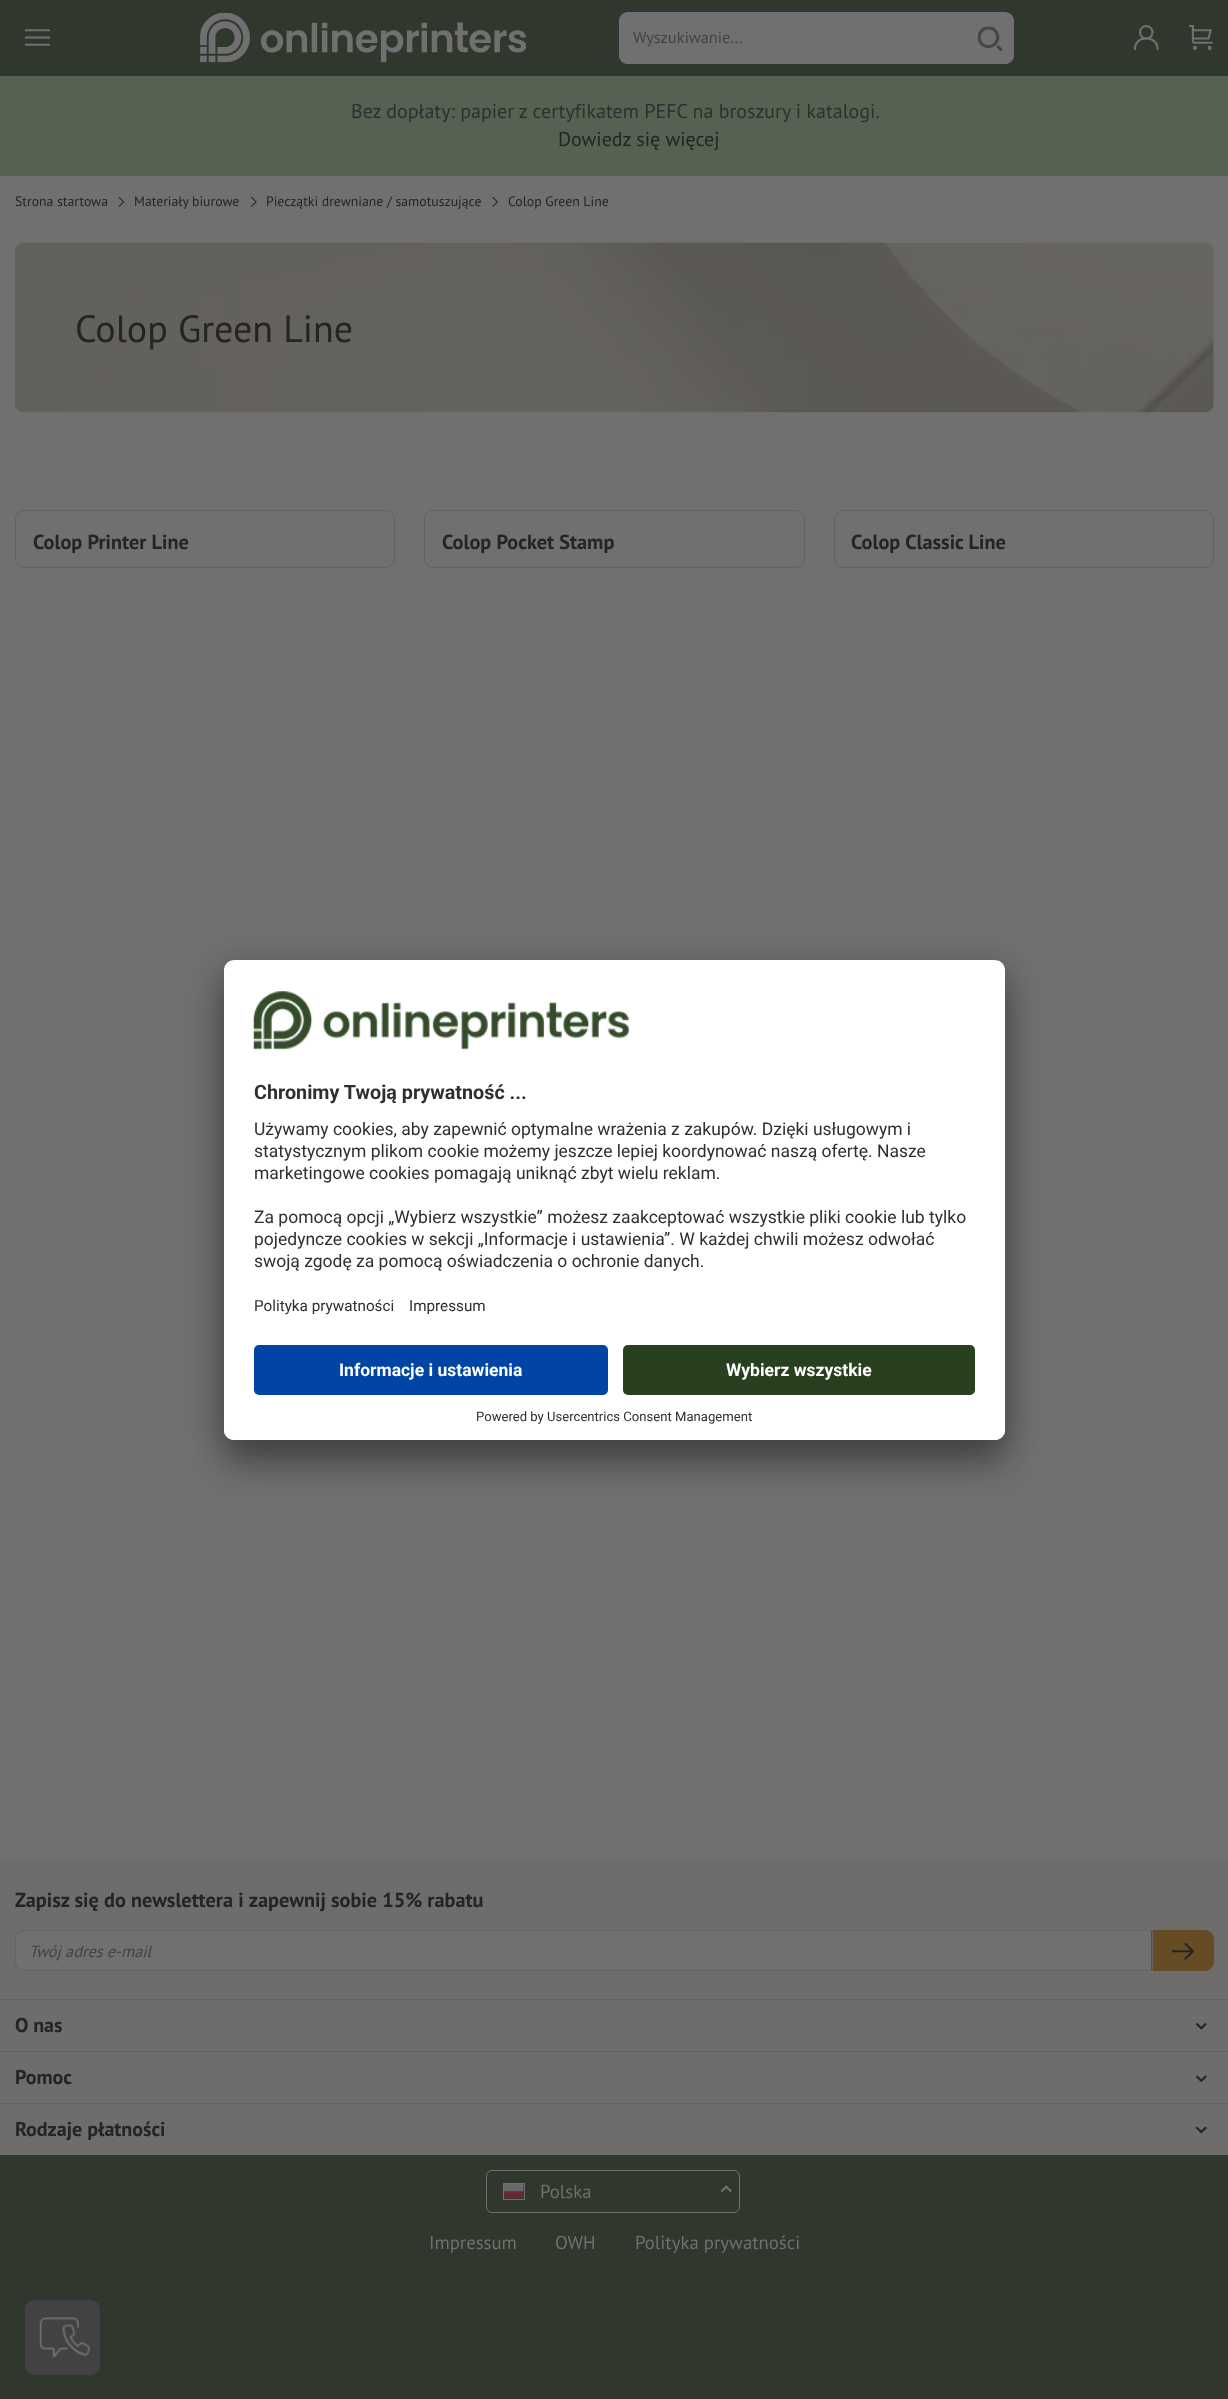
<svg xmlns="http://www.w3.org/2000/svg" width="1228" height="2399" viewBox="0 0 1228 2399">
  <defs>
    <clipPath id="clip1"><rect x="224" y="960" width="781" height="480" rx="10"/></clipPath>
    <clipPath id="clip2"><path d="M234 960H995C1000.5 960 1005 964.5 1005 970V1335H224V970C224 964.5 228.5 960 234 960Z"/></clipPath>
  </defs>
  <rect width="100%" height="100%" fill="rgb(112,112,112)"/>
  <rect x="0" y="0" width="1228" height="76" fill="rgb(48,55,45)"/>
  <image x="25" y="29" width="25" height="17" href="pic1.png"/>
  <image x="200" y="12" width="326" height="51" href="pic2.png"/>
  <path d="M628 13H968V64H628C623 64 619 60 619 55V22C619 17 623 13 628 13Z" fill="rgb(112,112,112)"/>
  <path d="M628 12H968V64H628C623 64 619 60 619 55V21C619 16 623 12 628 12ZM628 14H968V62H628C623 62 620 59 620 55V21C620 17 623 14 628 14Z" fill="rgb(112,112,112)" fill-rule="evenodd"/>
  <text x="633" y="43" font-family="PT Sans" font-size="16.25" fill="rgb(66,66,66)">Wyszukiwanie...</text>
  <path d="M968 13H1005C1010 13 1014 17 1014 22V55C1014 60 1010 64 1005 64H968Z" fill="rgb(112,112,112)"/>
  <path d="M968 12H1005C1010 12 1014 16 1014 21V55C1014 60 1010 64 1005 64H968ZM968 14H1005C1009 14 1012 17 1012 21V55C1012 59 1009 62 1005 62H968Z" fill="rgb(112,112,112)" fill-rule="evenodd"/>
  <image x="977" y="26" width="26" height="25" href="pic3.png"/>
  <image x="1134" y="25" width="25" height="25" href="pic4.png"/>
  <image x="1189" y="25" width="24" height="25" href="pic5.png"/>
  <rect x="0" y="76" width="1228" height="100" fill="rgb(85,98,81)"/>
  <text x="351" y="118" font-family="PT Sans" font-size="20" fill="rgb(46,47,48)">Bez dopłaty: papier z certyfikatem PEFC na broszury i katalogi.</text>
  <text x="558" y="146" font-family="PT Sans" font-size="20" fill="rgb(36,36,36)">Dowiedz się więcej</text>
  <text x="15" y="206" font-family="PT Sans" font-size="13.75" fill="rgb(36,36,36)">Strona startowa</text>
  <image x="118" y="196" width="7" height="11" href="pic6.png"/>
  <text x="134" y="206" font-family="PT Sans" font-size="13.75" fill="rgb(36,36,36)">Materiały biurowe</text>
  <image x="251" y="196" width="6" height="11" href="pic7.png"/>
  <text x="266" y="206" font-family="PT Sans" font-size="13.75" fill="rgb(36,36,36)">Pieczątki drewniane / samotuszujące</text>
  <image x="492" y="196" width="6" height="11" href="pic8.png"/>
  <text x="508" y="206" font-family="PT Sans" font-size="13.75" fill="rgb(36,36,36)">Colop Green Line</text>
  <image x="15" y="242" width="1199" height="171" href="pic9.png"/>
  <text x="75" y="342" font-family="PT Sans" font-size="38" fill="rgb(36,36,36)">Colop Green Line</text>
  <rect x="15.5" y="510.5" width="379" height="57" rx="8.5" fill="none" stroke="rgb(98,98,98)"/>
  <text x="33" y="549" font-family="PT Sans" font-size="20.3" font-weight="bold" fill="rgb(36,36,36)">Colop Printer Line</text>
  <rect x="424.5" y="510.5" width="380" height="57" rx="8.5" fill="none" stroke="rgb(98,98,98)"/>
  <text x="442" y="549" font-family="PT Sans" font-size="20.3" font-weight="bold" fill="rgb(36,36,36)">Colop Pocket Stamp</text>
  <rect x="834.5" y="510.5" width="379" height="57" rx="8.5" fill="none" stroke="rgb(98,98,98)"/>
  <text x="851" y="549" font-family="PT Sans" font-size="20.3" font-weight="bold" fill="rgb(36,36,36)">Colop Classic Line</text>
  <rect x="224" y="985" width="781" height="480" rx="10" fill="rgba(0,0,0,0.3)" filter="blur(17.5px)"/>
  <rect x="224" y="966" width="781" height="480" rx="10" fill="rgba(0,0,0,0.22)" filter="blur(16px)"/>
  <rect x="224" y="960" width="781" height="480" rx="10" fill="rgb(255,255,255)"/>
  <g clip-path="url(#clip1)">
    <g clip-path="url(#clip2)">
      <rect x="224" y="961" width="781" height="374" fill="rgb(255,255,255)"/>
    </g>
  </g>
  <image x="253" y="991" width="376" height="59" href="pic10.png"/>
  <text x="254" y="1099" font-family="Roboto" font-size="19.75" font-weight="bold" fill="rgb(46,47,48)">Chronimy Twoją prywatność ...</text>
  <g font-family="Roboto" font-size="17.5" fill="rgb(46,47,48)">
    <text>
      <tspan x="254" y="1135">Używamy cookies, aby zapewnić optymalne wrażenia z zakupów. Dzięki usługowym i</tspan>
      <tspan x="254" y="1157">statystycznym plikom cookie możemy jeszcze lepiej koordynować naszą ofertę. Nasze</tspan>
      <tspan x="254" y="1179">marketingowe cookies pomagają uniknąć zbyt wielu reklam.</tspan>
    </text>
    <text>
      <tspan x="254" y="1223">Za pomocą opcji „Wybierz wszystkie” możesz zaakceptować wszystkie pliki cookie lub tylko</tspan>
      <tspan x="254" y="1245">pojedyncze cookies w sekcji „Informacje i ustawienia”. W każdej chwili możesz odwołać</tspan>
      <tspan x="254" y="1267">swoją zgodę za pomocą oświadczenia o ochronie danych.</tspan>
    </text>
  </g>
  <g font-family="Roboto" font-size="15.25" fill="rgb(46,47,48)">
    <text x="254" y="1311">Polityka prywatności</text>
    <text x="409" y="1311">Impressum</text>
  </g>
  <path d="M224 1335H1005V1430C1005 1435.5 1000.5 1440 995 1440H234C228.5 1440 224 1435.5 224 1430Z" fill="rgb(255,255,255)"/>
  <rect x="254" y="1345" width="354" height="50" rx="5" fill="rgb(0,69,165)"/>
  <text x="339" y="1376" font-family="Roboto" font-size="17.5" font-weight="bold" fill="rgb(255,255,255)">Informacje i ustawienia</text>
  <rect x="623" y="1345" width="352" height="50" rx="5" fill="rgb(40,64,32)"/>
  <text x="726" y="1376" font-family="Roboto" font-size="17.5" font-weight="bold" fill="rgb(255,255,255)">Wybierz wszystkie</text>
  <text x="476" y="1421" font-family="Roboto" font-size="13.1" fill="rgb(46,47,48)">Powered by Usercentrics Consent Management</text>
  <rect x="0" y="1860" width="1228" height="295" fill="rgb(110,109,108)"/>
  <text x="15" y="1907" font-family="PT Sans" font-size="20.3" font-weight="bold" fill="rgb(36,36,36)">Zapisz się do newslettera i zapewnij sobie 15% rabatu</text>
  <path d="M24 1931H1151V1970H24C19.5 1970 16 1966.5 16 1962V1939C16 1934.5 19.5 1931 24 1931Z" fill="rgb(112,112,112)"/>
  <path d="M1151.5 1930.5H1205C1209.5 1930.5 1213.5 1934.5 1213.5 1939V1962C1213.5 1966.5 1209.5 1970.5 1205 1970.5H1151.5Z" fill="rgb(102,76,36)" stroke="rgb(102,76,36)"/>
  <path d="M24 1930.5H1152.5V1970.5H24C19.5 1970.5 15.5 1966.5 15.5 1962V1939C15.5 1934.5 19.5 1930.5 24 1930.5Z" fill="none" stroke="rgb(98,99,101)"/>
  <text x="29" y="1957" font-family="PT Sans" font-size="16.25" font-style="italic" fill="rgb(66,66,66)">Twój adres e-mail</text>
  <image x="1172" y="1942" width="23" height="18" href="pic11.png"/>
  <rect x="0" y="1999" width="1228" height="1" fill="rgb(98,98,98)"/>
  <text x="15" y="2032" font-family="PT Sans" font-size="20" font-weight="bold" fill="rgb(36,36,36)">O nas</text>
  <image x="1195" y="2022" width="12" height="8" href="pic12.png"/>
  <rect x="0" y="2051" width="1228" height="1" fill="rgb(98,98,98)"/>
  <text x="15" y="2084" font-family="PT Sans" font-size="20" font-weight="bold" fill="rgb(36,36,36)">Pomoc</text>
  <image x="1195" y="2075" width="12" height="8" href="pic13.png"/>
  <rect x="0" y="2103" width="1228" height="1" fill="rgb(98,98,98)"/>
  <text x="15" y="2136" font-family="PT Sans" font-size="20" font-weight="bold" fill="rgb(36,36,36)">Rodzaje płatności</text>
  <image x="1195" y="2126" width="12" height="8" href="pic14.png"/>
  <rect x="0" y="2155" width="1228" height="244" fill="rgb(48,55,45)"/>
  <rect x="486.5" y="2170.5" width="253" height="42" rx="5.5" fill="none" stroke="rgb(112,112,112)"/>
  <rect x="503.5" y="2183.5" width="21" height="16" fill="none" stroke="rgb(112,112,112)"/>
  <image x="504" y="2184" width="20" height="15" href="pic15.png"/>
  <text x="540" y="2198" font-family="PT Sans" font-size="18.75" fill="rgb(112,112,112)">Polska</text>
  <image x="720" y="2185" width="12" height="8" href="pic16.png"/>
  <g font-family="PT Sans" font-size="18.75" fill="rgb(112,112,112)">
    <text x="429" y="2249">Impressum</text>
    <text x="555" y="2249">OWH</text>
    <text x="635" y="2249">Polityka prywatności</text>
  </g>
  <rect x="25" y="2300" width="75" height="75" rx="9" fill="rgb(66,66,66)"/>
  <image x="39" y="2317" width="52" height="41" href="pic17.png"/>
</svg>
